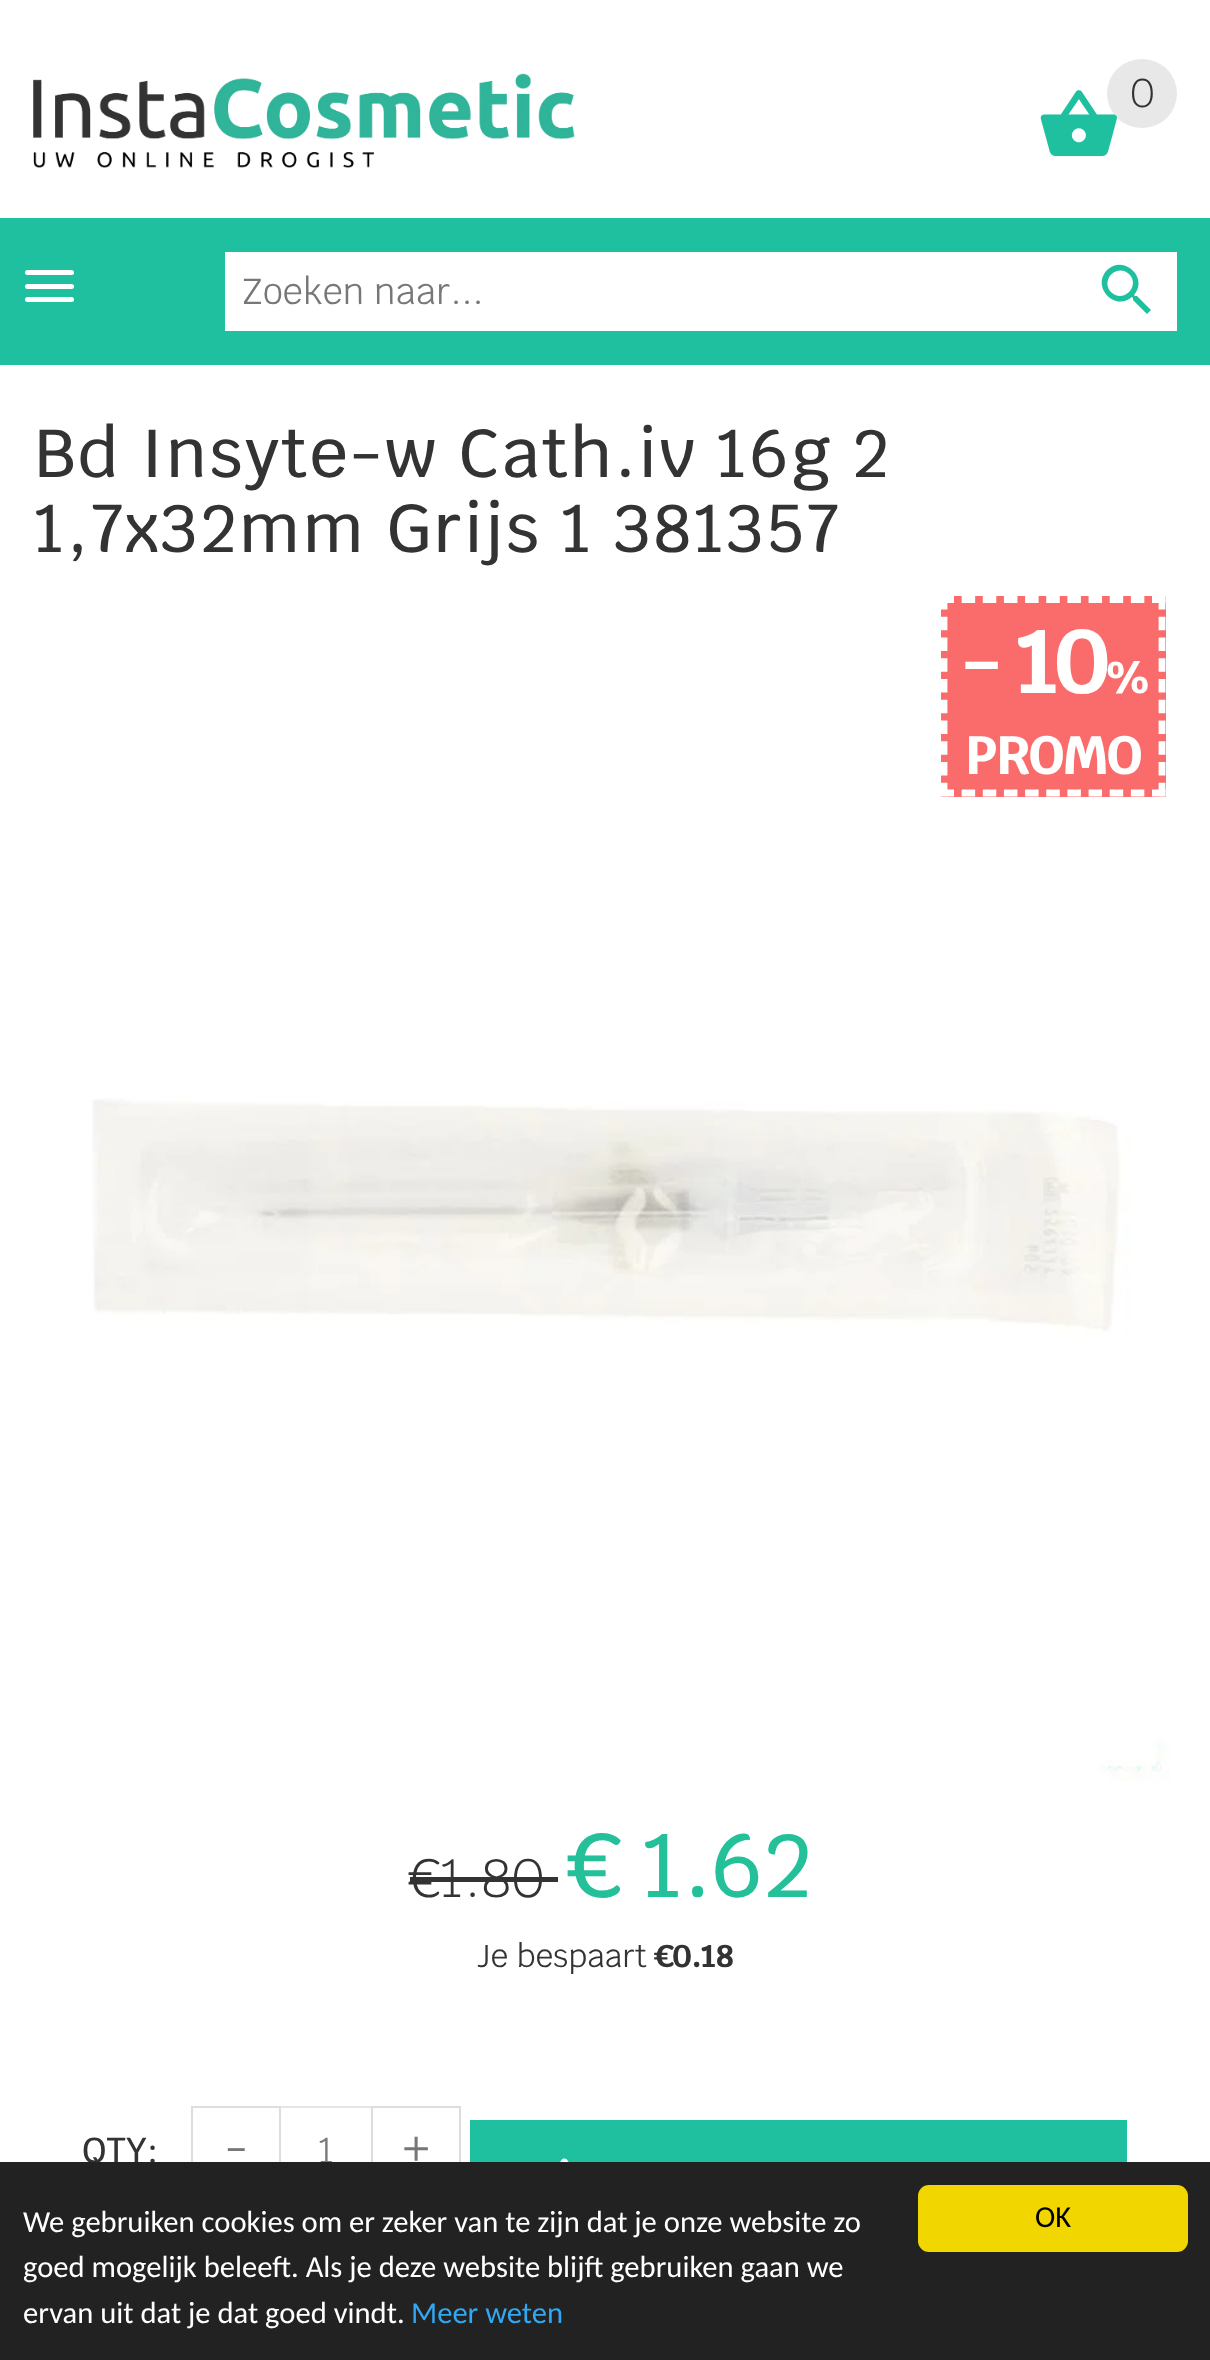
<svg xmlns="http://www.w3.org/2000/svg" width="1210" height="2360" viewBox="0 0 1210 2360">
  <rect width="100%" height="100%" fill="rgb(255,255,255)"/>
  <image x="33" y="73" width="542" height="95" href="pic1.png"/>
  <rect x="1107" y="59" width="70" height="69" rx="34.5" fill="rgb(232,232,232)"/>
  <image x="1040" y="90" width="78" height="67" href="pic2.png"/>
  <text x="1130" y="107" font-family="Krub" font-size="40" font-weight="300" fill="rgb(51,51,51)">0</text>
  <rect x="0" y="218" width="1210" height="147" fill="rgb(31,192,160)"/>
  <rect x="25" y="270" width="49" height="5" rx="2.5" fill="rgb(255,255,255)"/>
  <rect x="25" y="284" width="49" height="5" rx="2.5" fill="rgb(255,255,255)"/>
  <rect x="25" y="297" width="49" height="5" rx="2.5" fill="rgb(255,255,255)"/>
  <rect x="225" y="252" width="952" height="79" fill="rgb(255,255,255)"/>
  <text x="242" y="304" font-family="Krub" font-size="36" fill="rgb(119,119,119)">Zoeken naar...</text>
  <path d="M1111 292C1123 304 1141 286 1129 274C1117 263 1100 280 1111 292ZM1137 296L1151 310L1147 314L1133 300V298L1132 297C1115 312 1091 287 1107 270C1124 254 1149 278 1134 295L1135 296Z" fill="rgb(31,192,160)"/>
  <g font-family="Krub" font-size="67.5" font-weight="500" letter-spacing="2.25" fill="rgb(51,51,51)">
    <text>
      <tspan x="34" y="477">Bd Insyte-w Cath.iv 16g 2</tspan>
      <tspan x="34" y="552">1,7x32mm Grijs 1 381357</tspan>
    </text>
  </g>
  <text x="410" y="1897" font-family="Krub" font-size="54" font-weight="300" fill="rgb(51,51,51)">€1.80</text>
  <rect x="410" y="1877" width="148" height="5" fill="rgb(51,51,51)"/>
  <rect x="941" y="596" width="225" height="201" fill="rgb(250,107,107)"/>
  <path d="M940.5 599.5H1165.5" fill="none" stroke="rgb(255,255,255)" stroke-width="6.8" stroke-dasharray="13.5 7.65"/>
  <path d="M1162 596V796.5" fill="none" stroke="rgb(255,255,255)" stroke-width="6.8" stroke-dasharray="13.5 7.25"/>
  <path d="M940.5 793H1165.5" fill="none" stroke="rgb(255,255,255)" stroke-width="6.8" stroke-dasharray="13.5 7.65"/>
  <path d="M944 596V796.5" fill="none" stroke="rgb(255,255,255)" stroke-width="6.8" stroke-dasharray="13.5 7.25"/>
  <text x="960" y="693" font-family="Krub" font-size="90" font-weight="bold" letter-spacing="-4.5" fill="rgb(255,255,255)">- 10</text>
  <text x="1105" y="693" font-family="Krub" font-size="45" font-weight="bold" letter-spacing="-4.5" fill="rgb(255,255,255)">%</text>
  <text x="965" y="774" font-family="Krub" font-size="54" font-weight="bold" letter-spacing="-2.25" fill="rgb(255,255,255)">PROMO</text>
  <text x="570" y="1897" font-family="Krub" font-size="90" font-weight="500" fill="rgb(35,192,153)">€ 1.62</text>
  <text x="477" y="1967" font-family="Krub" font-size="31.5" fill="rgb(51,51,51)">Je bespaart</text>
  <text x="655" y="1967" font-family="Krub" font-size="31.5" font-weight="bold" fill="rgb(51,51,51)">€0.18</text>
  <image x="92" y="1098" width="1078" height="684" href="pic3.png"/>
  <text x="82" y="2163" font-family="Krub" font-size="36" font-weight="500" fill="rgb(51,51,51)">QTY:</text>
  <rect x="192" y="2107" width="268" height="88" fill="none" stroke="rgb(229,229,229)" stroke-width="2"/>
  <rect x="192" y="2107" width="88" height="88" fill="none" stroke="rgb(221,221,221)" stroke-width="2"/>
  <text x="225" y="2164" font-family="Krub" font-size="47" fill="rgb(119,119,119)">-</text>
  <text x="318" y="2163" font-family="Krub" font-size="36" fill="rgb(119,119,119)">1</text>
  <rect x="372" y="2107" width="88" height="88" fill="none" stroke="rgb(221,221,221)" stroke-width="2"/>
  <text x="402" y="2164" font-family="Krub" font-size="47" fill="rgb(119,119,119)">+</text>
  <rect x="470" y="2120" width="657" height="42" fill="rgb(31,192,160)"/>
  <image x="560" y="2158" width="9" height="4" href="pic4.png"/>
  <rect x="0" y="2162" width="1210" height="198" fill="rgb(34,34,34)"/>
  <g font-family="Carlito" font-size="30.6" fill="rgb(255,255,255)">
    <text>
      <tspan x="23" y="2232">We gebruiken cookies om er zeker van te zijn dat je onze website zo</tspan>
      <tspan x="23" y="2277">goed mogelijk beleeft. Als je deze website blijft gebruiken gaan we</tspan>
      <tspan x="23" y="2323">ervan uit dat je dat goed vindt.</tspan>
    </text>
  </g>
  <text x="411" y="2323" font-family="Carlito" font-size="30.6" fill="rgb(49,168,240)">Meer weten</text>
  <rect x="918" y="2185" width="270" height="67" rx="11" fill="rgb(241,214,0)"/>
  <text x="1035" y="2227" font-family="Carlito" font-size="30.6" fill="rgb(0,0,0)">OK</text>
</svg>
